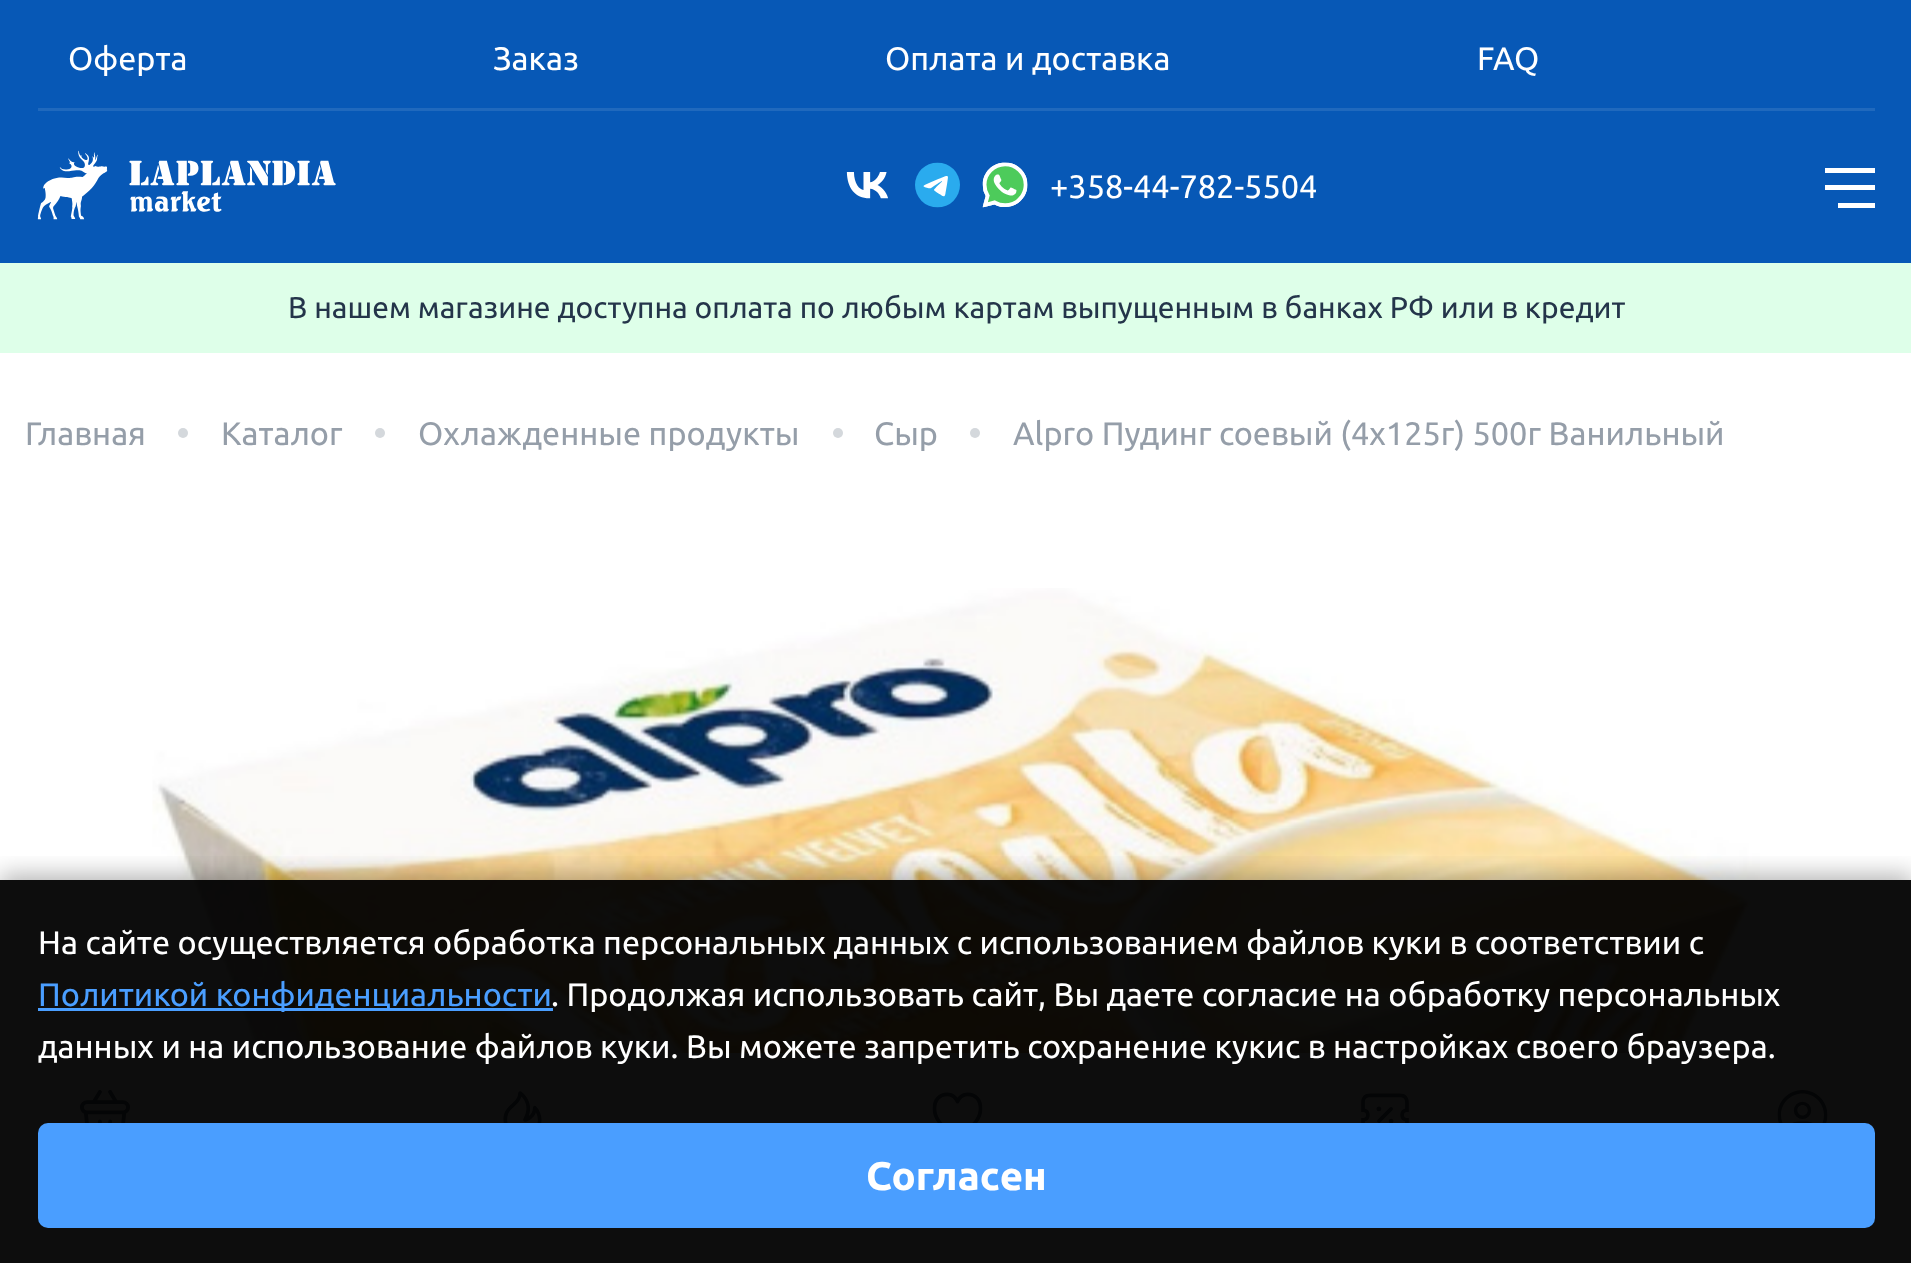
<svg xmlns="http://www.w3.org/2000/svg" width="1911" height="1263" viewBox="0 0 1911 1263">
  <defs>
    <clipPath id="clip1"><rect x="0" y="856" width="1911" height="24"/></clipPath>
  </defs>
  <rect width="100%" height="100%" fill="rgb(255,255,255)"/>
  <rect x="0" y="0" width="1911" height="263" fill="rgb(7,88,182)"/>
  <g font-family="Ubuntu" font-size="32.5" fill="rgb(255,255,255)">
    <text x="68" y="70">Оферта</text>
    <text x="493" y="70">Заказ</text>
    <text x="885" y="70">Оплата и доставка</text>
    <text x="1477" y="70">FAQ</text>
  </g>
  <rect x="38" y="108" width="1837" height="3" fill="rgb(32,105,189)"/>
  <image x="37" y="150" width="71" height="70" href="pic1.png"/>
  <image x="129" y="160" width="207" height="52" href="pic2.png"/>
  <image x="846" y="172" width="42" height="27" href="pic3.png"/>
  <image x="915" y="162" width="45" height="46" href="pic4.png"/>
  <image x="982" y="162" width="46" height="46" href="pic5.png"/>
  <text x="1050" y="198" font-family="Ubuntu" font-size="32.5" fill="rgb(255,255,255)">+358-44-782-5504</text>
  <rect x="1825" y="168" width="50" height="5" fill="rgb(255,255,255)"/>
  <rect x="1825" y="185" width="50" height="5" fill="rgb(255,255,255)"/>
  <rect x="1838" y="203" width="37" height="5" fill="rgb(255,255,255)"/>
  <rect x="0" y="263" width="1911" height="90" fill="rgb(222,255,233)"/>
  <text x="288" y="318" font-family="Ubuntu" font-size="30" fill="rgb(36,53,74)">В нашем магазине доступна оплата по любым картам выпущенным в банках РФ или в кредит</text>
  <text x="25" y="445" font-family="Ubuntu" font-size="32.5" fill="rgb(149,158,169)">Главная</text>
  <circle cx="183" cy="433" r="5" fill="rgb(212,216,220)"/>
  <text x="221" y="445" font-family="Ubuntu" font-size="32.5" fill="rgb(149,158,169)">Каталог</text>
  <circle cx="380" cy="433" r="5" fill="rgb(212,216,220)"/>
  <text x="418" y="445" font-family="Ubuntu" font-size="32.5" fill="rgb(149,158,169)">Охлажденные продукты</text>
  <circle cx="838" cy="433" r="5" fill="rgb(212,216,220)"/>
  <text x="874" y="445" font-family="Ubuntu" font-size="32.5" fill="rgb(149,158,169)">Сыр</text>
  <circle cx="975" cy="433" r="5" fill="rgb(212,216,220)"/>
  <text x="1013" y="445" font-family="Ubuntu" font-size="32.5" fill="rgb(149,158,169)">Alpro Пудинг соевый (4x125г) 500г Ванильный</text>
  <image x="152" y="588" width="1608" height="465" href="pic6.png"/>
  <rect x="0" y="1053" width="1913" height="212" rx="50" fill="rgba(0,0,0,0.1)" filter="blur(12.5px)"/>
  <path d="M50 1053H1863C1890.5 1053 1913 1075.5 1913 1103V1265H0V1103C0 1075.5 22.5 1053 50 1053Z" fill="rgb(255,255,255)"/>
  <image x="80" y="1090" width="50" height="33" href="pic7.png"/>
  <image x="503" y="1091" width="39" height="32" href="pic8.png"/>
  <image x="932" y="1092" width="51" height="31" href="pic9.png"/>
  <image x="1361" y="1093" width="48" height="30" href="pic10.png"/>
  <image x="1777" y="1090" width="51" height="33" href="pic11.png"/>
  <g clip-path="url(#clip1)">
    <rect x="0" y="875" width="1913" height="385" fill="rgba(0,0,0,0.3)" filter="blur(12.5px)"/>
  </g>
  <rect x="0" y="880" width="1911" height="383" fill="rgba(0,0,0,0.95)"/>
  <text x="38" y="954" font-family="Ubuntu" font-size="32.5" fill="rgb(255,255,255)">На сайте осуществляется обработка персональных данных с использованием файлов куки в соответствии с</text>
  <rect x="38" y="1008" width="515" height="3" fill="rgb(74,158,255)"/>
  <text x="38" y="1006" font-family="Ubuntu" font-size="32.5" fill="rgb(74,158,255)">Политикой конфиденциальности</text>
  <g font-family="Ubuntu" font-size="32.5" fill="rgb(255,255,255)">
    <text x="551" y="1006">. Продолжая использовать сайт, Вы даете согласие на обработку персональных</text>
    <text x="38" y="1058">данных и на использование файлов куки. Вы можете запретить сохранение кукис в настройках своего браузера.</text>
  </g>
  <rect x="38" y="1123" width="1837" height="105" rx="10" fill="rgb(74,158,255)"/>
  <text x="866" y="1190" font-family="Ubuntu" font-size="40" font-weight="bold" fill="rgb(255,255,255)">Согласен</text>
</svg>
